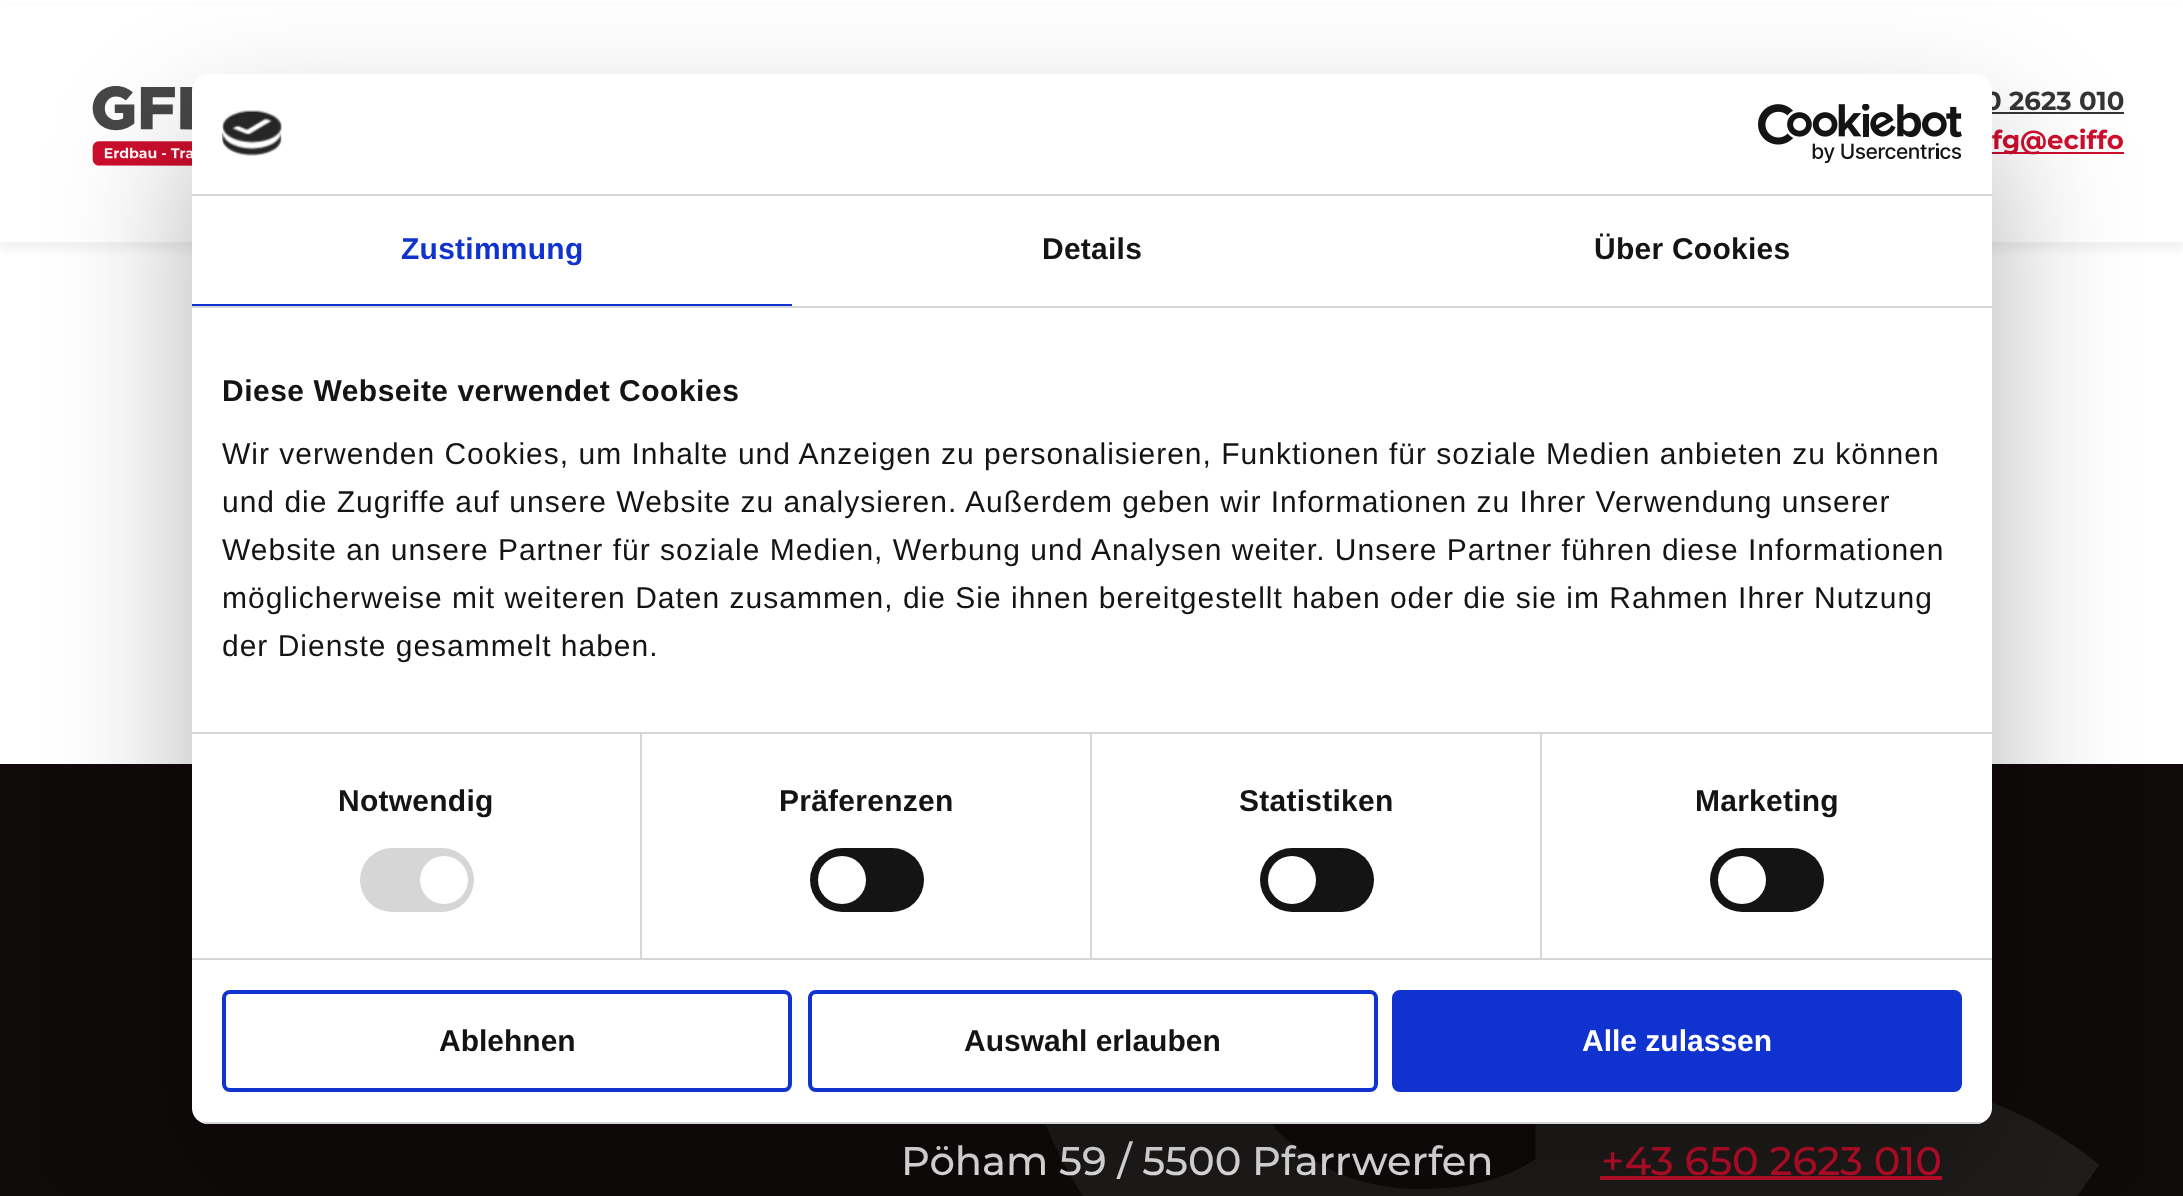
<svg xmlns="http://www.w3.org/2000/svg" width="2183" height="1196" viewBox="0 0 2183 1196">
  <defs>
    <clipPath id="clip1"><rect x="192" y="74" width="1800" height="1050" rx="16"/></clipPath>
  </defs>
  <rect width="100%" height="100%" fill="rgb(255,255,255)"/>
  <rect x="0" y="8" width="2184" height="242" fill="rgba(0,0,0,0.05)" filter="blur(4px)"/>
  <rect x="0" y="5" width="2183" height="237" fill="rgb(255,255,255)"/>
  <image x="92" y="86" width="101" height="80" href="pic1.png"/>
  <text x="1984" y="110" font-family="'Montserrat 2'" font-size="26" font-weight="100" fill="rgb(53,53,53)">0 2623 010</text>
  <rect x="1992" y="112" width="132" height="2" fill="rgb(53,53,53)"/>
  <rect x="1992" y="152" width="132" height="2" fill="rgb(206,14,45)"/>
  <text x="1992" y="149" font-family="'Montserrat 2'" font-size="26" font-weight="100" fill="rgb(206,14,45)">fg@eciffo</text>
  <rect x="0" y="764" width="2183" height="432" fill="rgb(16,11,11)"/>
  <image x="1046" y="1103" width="1053" height="93" href="pic2.png"/>
  <text x="901" y="1175" font-family="Montserrat" font-size="40" font-weight="100" fill="rgb(255,255,255)">Pöham 59 / 5500 Pfarrwerfen</text>
  <text x="1601" y="1175" font-family="Montserrat" font-size="40" font-weight="100" fill="rgb(206,14,45)">+43 650 2623 010</text>
  <rect x="1600" y="1176" width="342" height="4" fill="rgb(206,14,45)"/>
  <rect x="192" y="138" width="1800" height="1050" rx="16" fill="rgba(0,0,0,0.3)" filter="blur(68px)"/>
  <rect x="192" y="74" width="1800" height="1050" rx="16" fill="rgb(255,255,255)"/>
  <rect x="192" y="194" width="1800" height="2" fill="rgb(214,214,214)"/>
  <image x="222" y="110" width="60" height="46" href="pic3.png"/>
  <image x="1758" y="104" width="204" height="60" href="pic4.png"/>
  <rect x="192" y="306" width="1800" height="2" fill="rgb(214,214,214)"/>
  <rect x="192" y="304" width="600" height="2" fill="rgb(16,50,207)"/>
  <text x="401" y="259" font-family="Liberation Sans" font-size="30" font-weight="bold" letter-spacing="0.25" fill="rgb(16,50,207)">Zustimmung</text>
  <g font-family="Liberation Sans" font-size="30" font-weight="bold" letter-spacing="0.25" fill="rgb(20,20,20)">
    <text x="1042" y="259">Details</text>
    <text x="1594" y="259">Über Cookies</text>
  </g>
  <rect x="192" y="732" width="1800" height="2" fill="rgb(214,214,214)"/>
  <text x="222" y="401" font-family="Liberation Sans" font-size="30" font-weight="bold" letter-spacing="0.5" fill="rgb(20,20,20)">Diese Webseite verwendet Cookies</text>
  <g font-family="Liberation Sans" font-size="30" letter-spacing="1" fill="rgb(20,20,20)">
    <text>
      <tspan x="222" y="464">Wir verwenden Cookies, um Inhalte und Anzeigen zu personalisieren, Funktionen für soziale Medien anbieten zu können</tspan>
      <tspan x="222" y="512">und die Zugriffe auf unsere Website zu analysieren. Außerdem geben wir Informationen zu Ihrer Verwendung unserer</tspan>
      <tspan x="222" y="560">Website an unsere Partner für soziale Medien, Werbung und Analysen weiter. Unsere Partner führen diese Informationen</tspan>
      <tspan x="222" y="608">möglicherweise mit weiteren Daten zusammen, die Sie ihnen bereitgestellt haben oder die sie im Rahmen Ihrer Nutzung</tspan>
      <tspan x="222" y="656">der Dienste gesammelt haben.</tspan>
    </text>
  </g>
  <rect x="192" y="958" width="1800" height="2" fill="rgb(214,214,214)"/>
  <rect x="640" y="734" width="2" height="224" fill="rgb(214,214,214)"/>
  <text x="338" y="811" font-family="Liberation Sans" font-size="30" font-weight="bold" letter-spacing="0.25" fill="rgb(20,20,20)">Notwendig</text>
  <rect x="360" y="848" width="114" height="64" rx="32" fill="rgb(214,214,214)"/>
  <circle cx="444" cy="880" r="24" fill="rgb(255,255,255)"/>
  <rect x="1090" y="734" width="2" height="224" fill="rgb(214,214,214)"/>
  <text x="779" y="811" font-family="Liberation Sans" font-size="30" font-weight="bold" letter-spacing="0.25" fill="rgb(20,20,20)">Präferenzen</text>
  <rect x="810" y="848" width="114" height="64" rx="32" fill="rgb(20,20,20)"/>
  <circle cx="842" cy="880" r="24" fill="rgb(255,255,255)"/>
  <rect x="1540" y="734" width="2" height="224" fill="rgb(214,214,214)"/>
  <text x="1239" y="811" font-family="Liberation Sans" font-size="30" font-weight="bold" letter-spacing="0.25" fill="rgb(20,20,20)">Statistiken</text>
  <rect x="1260" y="848" width="114" height="64" rx="32" fill="rgb(20,20,20)"/>
  <circle cx="1292" cy="880" r="24" fill="rgb(255,255,255)"/>
  <text x="1695" y="811" font-family="Liberation Sans" font-size="30" font-weight="bold" letter-spacing="0.25" fill="rgb(20,20,20)">Marketing</text>
  <rect x="1710" y="848" width="114" height="64" rx="32" fill="rgb(20,20,20)"/>
  <circle cx="1742" cy="880" r="24" fill="rgb(255,255,255)"/>
  <g clip-path="url(#clip1)">
    <rect x="192" y="1122" width="1800" height="2" fill="rgb(214,214,214)"/>
  </g>
  <rect x="224" y="992" width="566" height="98" rx="6" fill="none" stroke="rgb(16,50,207)" stroke-width="4"/>
  <text x="439" y="1051" font-family="Liberation Sans" font-size="30" font-weight="bold" fill="rgb(20,20,20)">Ablehnen</text>
  <rect x="810" y="992" width="566" height="98" rx="6" fill="none" stroke="rgb(16,50,207)" stroke-width="4"/>
  <text x="964" y="1051" font-family="Liberation Sans" font-size="30" font-weight="bold" fill="rgb(20,20,20)">Auswahl erlauben</text>
  <rect x="1394" y="992" width="566" height="98" rx="6" fill="rgb(16,50,207)" stroke="rgb(16,50,207)" stroke-width="4"/>
  <text x="1582" y="1051" font-family="Liberation Sans" font-size="30" font-weight="bold" fill="rgb(255,255,255)">Alle zulassen</text>
</svg>
